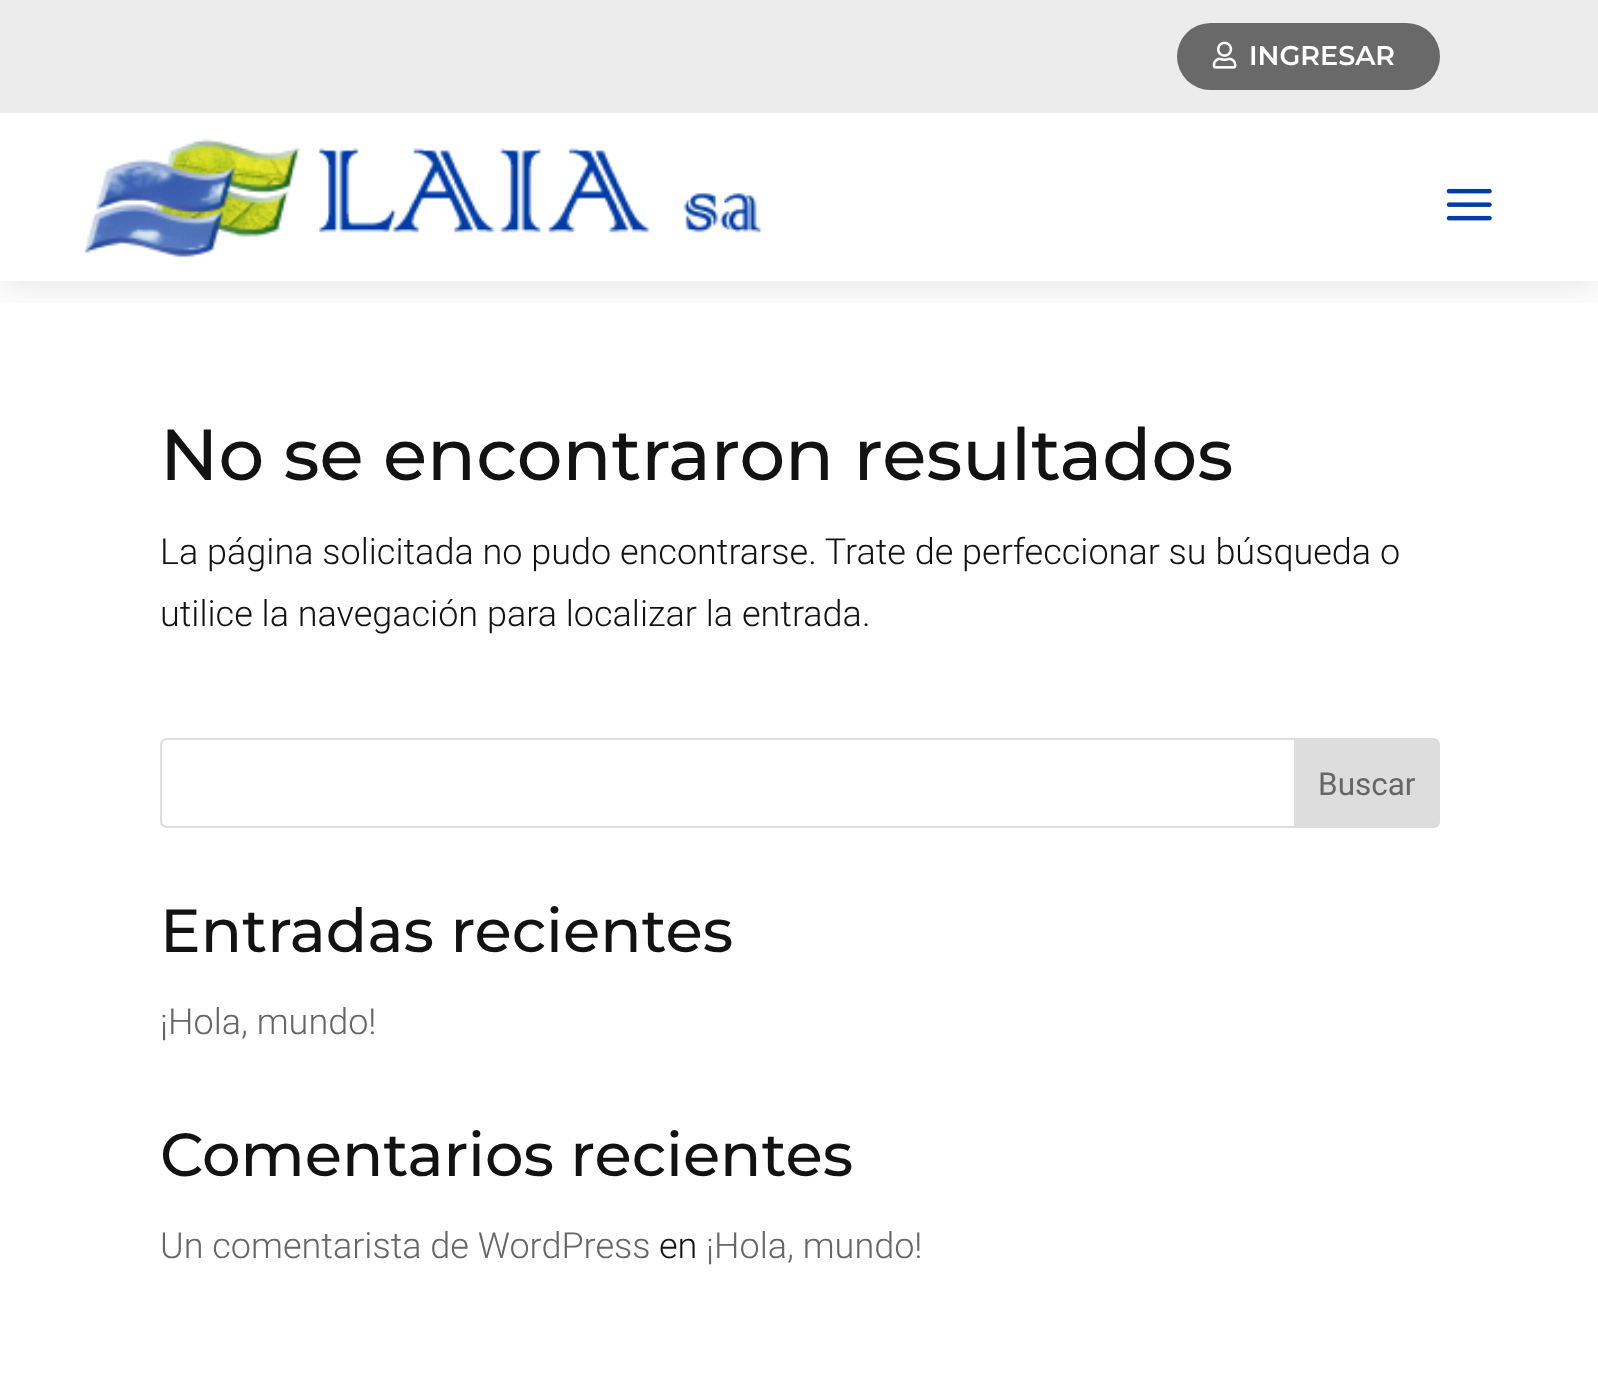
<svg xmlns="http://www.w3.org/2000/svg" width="1598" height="1383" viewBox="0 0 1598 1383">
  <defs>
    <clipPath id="clip1"><rect x="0" y="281" width="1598" height="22"/></clipPath>
  </defs>
  <rect width="100%" height="100%" fill="rgb(255,255,255)"/>
  <g clip-path="url(#clip1)">
    <rect x="0" y="5" width="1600" height="281" fill="rgba(0,0,0,0.1)" filter="blur(20px)"/>
  </g>
  <rect x="0" y="0" width="1598" height="113" fill="rgb(237,236,236)"/>
  <rect x="1177" y="23" width="263" height="67" rx="33.5" fill="rgb(106,105,106)"/>
  <image x="1212" y="41" width="25" height="28" href="pic1.png"/>
  <text x="1249" y="65" font-family="Montserrat" font-size="27" font-weight="600" fill="rgb(255,255,255)">INGRESAR</text>
  <image x="84" y="139" width="678" height="119" href="pic2.png"/>
  <image x="1446" y="188" width="46" height="33" href="pic3.png"/>
  <text x="160" y="480" font-family="Montserrat" font-size="72" font-weight="500" fill="rgb(18,18,19)">No se encontraron resultados</text>
  <g font-family="Roboto" font-size="36" font-weight="300" fill="rgb(18,18,19)">
    <text>
      <tspan x="160" y="564">La página solicitada no pudo encontrarse. Trate de perfeccionar su búsqueda o</tspan>
      <tspan x="160" y="626">utilice la navegación para localizar la entrada.</tspan>
    </text>
  </g>
  <rect x="161" y="739" width="1278" height="88" rx="6" fill="none" stroke="rgb(221,221,221)" stroke-width="2"/>
  <path d="M1295 739H1433C1436.5 739 1439 741.5 1439 745V821C1439 824.5 1436.5 827 1433 827H1295Z" fill="rgb(221,221,221)" stroke="rgb(221,221,221)" stroke-width="2"/>
  <text x="1318" y="795" font-family="Roboto" font-size="31.5" fill="rgb(102,102,102)">Buscar</text>
  <text x="160" y="952" font-family="Montserrat" font-size="60.75" font-weight="500" fill="rgb(18,18,19)">Entradas recientes</text>
  <text x="160" y="1034" font-family="Roboto" font-size="36" font-weight="300" fill="rgb(102,102,102)">¡Hola, mundo!</text>
  <text x="160" y="1176" font-family="Montserrat" font-size="60.75" font-weight="500" fill="rgb(18,18,19)">Comentarios recientes</text>
  <text x="160" y="1258" font-family="Roboto" font-size="36" font-weight="300" fill="rgb(102,102,102)">Un comentarista de WordPress</text>
  <text x="659" y="1258" font-family="Roboto" font-size="36" font-weight="300" fill="rgb(18,18,19)">en</text>
  <text x="706" y="1258" font-family="Roboto" font-size="36" font-weight="300" fill="rgb(102,102,102)">¡Hola, mundo!</text>
</svg>
